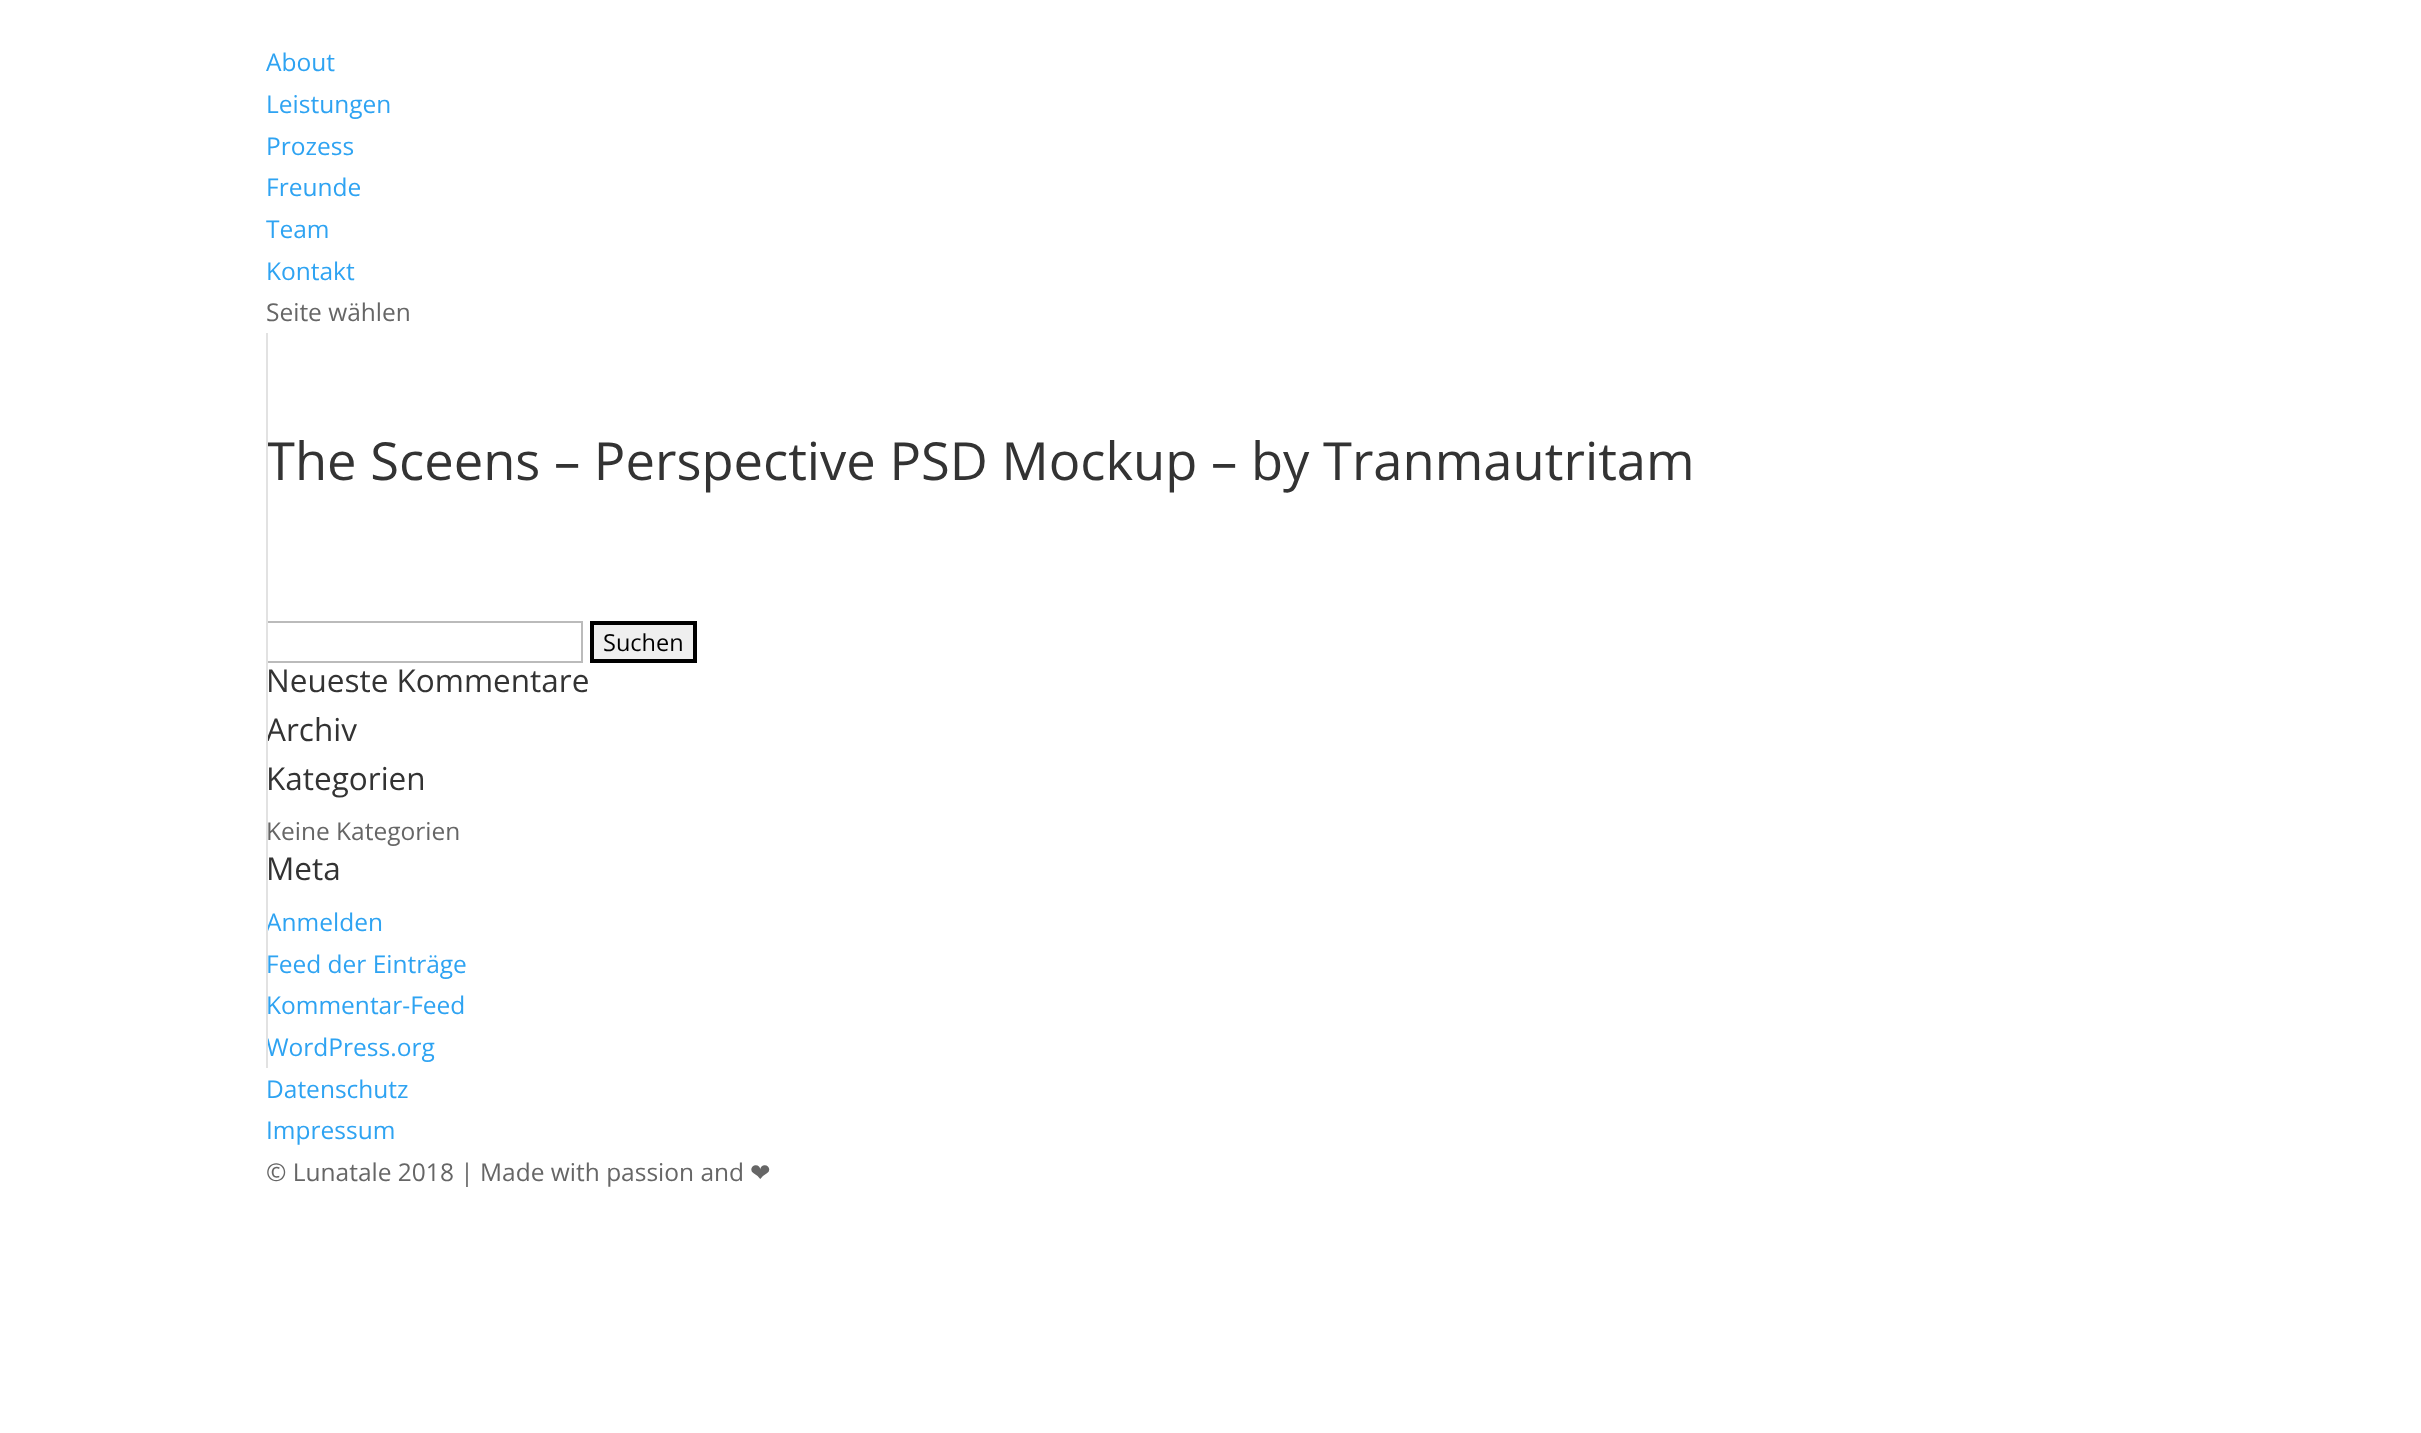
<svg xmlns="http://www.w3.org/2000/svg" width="2421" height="1433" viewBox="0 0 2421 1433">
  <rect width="100%" height="100%" fill="rgb(255,255,255)"/>
  <g font-family="Open Sans" font-size="24.5" fill="rgb(46,163,242)">
    <text>
      <tspan x="266" y="71">About</tspan>
      <tspan x="266" y="113">Leistungen</tspan>
      <tspan x="266" y="155">Prozess</tspan>
      <tspan x="266" y="196">Freunde</tspan>
      <tspan x="266" y="238">Team</tspan>
      <tspan x="266" y="280">Kontakt</tspan>
    </text>
  </g>
  <text x="266" y="321" font-family="Open Sans" font-size="24.5" fill="rgb(102,102,102)">Seite wählen</text>
  <text x="266" y="480" font-family="Open Sans" font-size="52.5" fill="rgb(51,51,51)">The Sceens – Perspective PSD Mockup – by Tranmautritam</text>
  <rect x="267" y="622" width="315" height="40" fill="none" stroke="rgb(187,187,187)" stroke-width="2"/>
  <text x="266" y="741" font-family="Open Sans" font-size="31.5" fill="rgb(51,51,51)">Archiv</text>
  <g font-family="Open Sans" font-size="24.5" fill="rgb(46,163,242)">
    <text x="266" y="931">Anmelden</text>
    <text x="266" y="1056">WordPress.org</text>
  </g>
  <rect x="266" y="333" width="2" height="735" fill="rgb(226,226,226)"/>
  <rect x="592" y="623" width="103" height="38" fill="rgb(239,239,239)" stroke="rgb(0,0,0)" stroke-width="4"/>
  <text x="603" y="651" font-family="Open Sans" font-size="23.5" fill="rgb(0,0,0)">Suchen</text>
  <g font-family="Open Sans" font-size="31.5" fill="rgb(51,51,51)">
    <text x="266" y="692">Neueste Kommentare</text>
    <text x="266" y="790">Kategorien</text>
  </g>
  <text x="266" y="840" font-family="Open Sans" font-size="24.5" fill="rgb(102,102,102)">Keine Kategorien</text>
  <text x="266" y="880" font-family="Open Sans" font-size="31.5" fill="rgb(51,51,51)">Meta</text>
  <g font-family="Open Sans" font-size="24.5" fill="rgb(46,163,242)">
    <text>
      <tspan x="266" y="973">Feed der Einträge</tspan>
      <tspan x="266" y="1014">Kommentar-Feed</tspan>
    </text>
    <text>
      <tspan x="266" y="1098">Datenschutz</tspan>
      <tspan x="266" y="1139">Impressum</tspan>
    </text>
  </g>
  <text x="266" y="1181" font-family="Open Sans" font-size="24.5" fill="rgb(102,102,102)">© Lunatale 2018 | Made with passion and</text>
  <text x="750" y="1181" font-family="DejaVu Sans" font-size="24.5" fill="rgb(102,102,102)">❤</text>
</svg>
